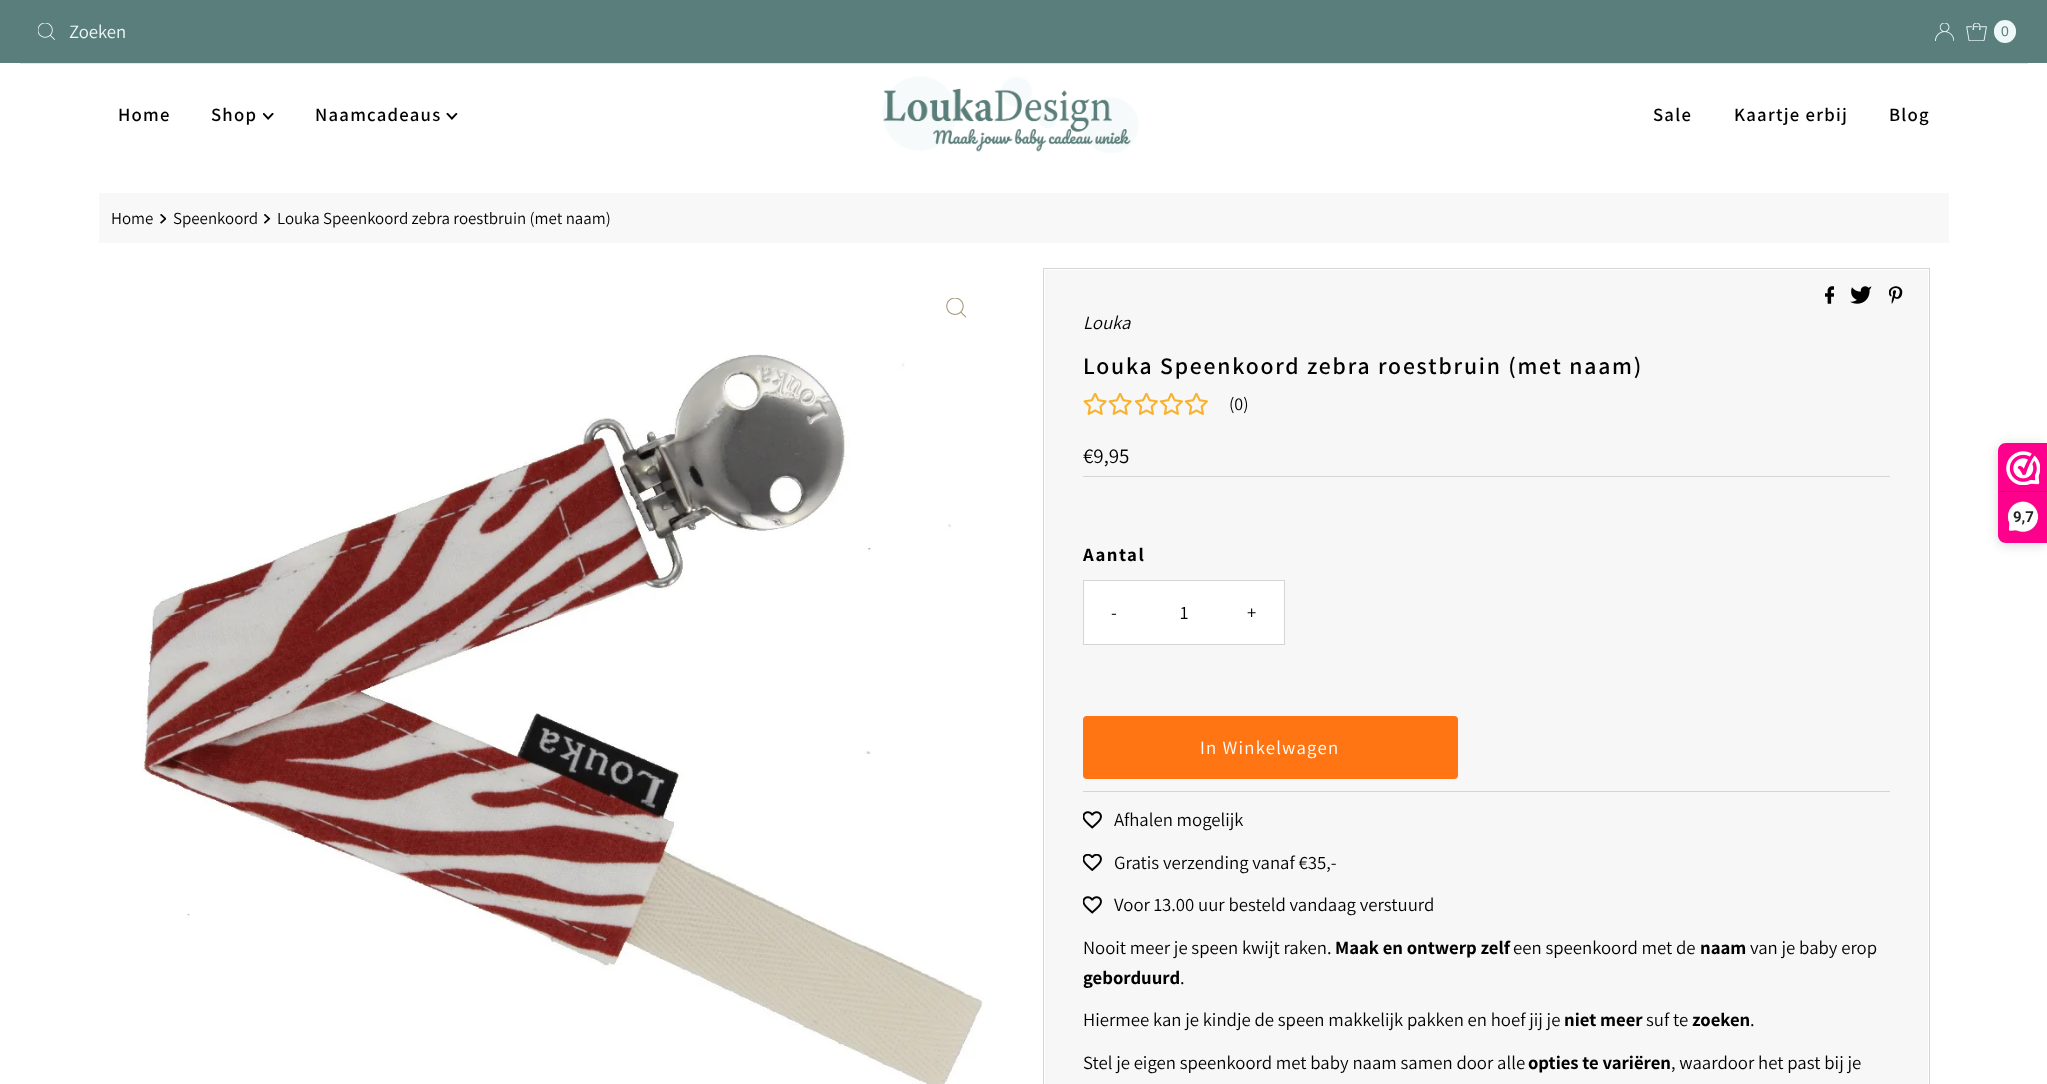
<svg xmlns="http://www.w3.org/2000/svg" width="2047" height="1084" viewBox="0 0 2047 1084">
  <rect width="100%" height="100%" fill="rgb(255,255,255)"/>
  <rect x="0" y="0" width="2047" height="63" fill="rgb(89,126,123)"/>
  <image x="38" y="23" width="17" height="17" href="pic1.png"/>
  <text x="69" y="38" font-family="Assistant" font-size="18.75" fill="rgb(239,248,248)">Zoeken</text>
  <image x="1935" y="23" width="19" height="18" href="pic2.png"/>
  <image x="1966" y="23" width="21" height="18" href="pic3.png"/>
  <rect x="1994" y="20" width="22" height="23" rx="11" fill="rgb(239,248,248)"/>
  <text x="2001" y="36" font-family="Liberation Sans" font-size="14" fill="rgb(89,126,123)">0</text>
  <rect x="20" y="63" width="2008" height="1" fill="rgb(228,228,228)"/>
  <g font-family="Assistant" font-size="18.75" font-weight="600" letter-spacing="1.25" fill="rgb(0,0,0)">
    <text x="118" y="121">Home</text>
    <text x="211" y="121">Shop</text>
  </g>
  <image x="263" y="113" width="11" height="7" href="pic4.png"/>
  <text x="315" y="121" font-family="Assistant" font-size="18.75" font-weight="600" letter-spacing="1.25" fill="rgb(0,0,0)">Naamcadeaus</text>
  <image x="446" y="113" width="12" height="7" href="pic5.png"/>
  <image x="882" y="76" width="257" height="77" href="pic6.png"/>
  <g font-family="Assistant" font-size="18.75" font-weight="600" letter-spacing="1.25" fill="rgb(0,0,0)">
    <text x="1653" y="121">Sale</text>
    <text x="1734" y="121">Kaartje erbij</text>
    <text x="1889" y="121">Blog</text>
  </g>
  <rect x="99" y="193" width="1850" height="50" fill="rgb(248,248,248)"/>
  <text x="111" y="224" font-family="Assistant" font-size="16.9" fill="rgb(0,0,0)">Home</text>
  <image x="160" y="214" width="6" height="10" href="pic7.png"/>
  <text x="173" y="224" font-family="Assistant" font-size="16.9" fill="rgb(0,0,0)">Speenkoord</text>
  <image x="264" y="214" width="7" height="10" href="pic8.png"/>
  <text x="277" y="224" font-family="Assistant" font-size="16.9" fill="rgb(0,0,0)">Louka Speenkoord zebra roestbruin (met naam)</text>
  <image x="946" y="298" width="20" height="20" href="pic9.png"/>
  <image x="141" y="354" width="842" height="730" href="pic10.png"/>
  <rect x="1045" y="270" width="883" height="814" fill="rgb(247,247,247)"/>
  <rect x="1043.5" y="268.5" width="886" height="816" fill="none" stroke="rgb(213,213,213)"/>
  <image x="1825" y="286" width="9" height="18" href="pic11.png"/>
  <image x="1850" y="286" width="22" height="18" href="pic12.png"/>
  <image x="1889" y="286" width="14" height="18" href="pic13.png"/>
  <text x="1083" y="329" font-family="Assistant" font-size="18.75" font-style="italic" fill="rgb(0,0,0)">Louka</text>
  <text x="1083" y="374" font-family="Assistant" font-size="23.75" font-weight="600" letter-spacing="1.8" fill="rgb(0,0,0)">Louka Speenkoord zebra roestbruin (met naam)</text>
  <image x="1083" y="393" width="24" height="22" href="pic14.png"/>
  <image x="1108" y="393" width="24" height="22" href="pic14.png"/>
  <image x="1134" y="393" width="24" height="22" href="pic15.png"/>
  <image x="1159" y="393" width="24" height="22" href="pic15.png"/>
  <image x="1184" y="393" width="24" height="22" href="pic15.png"/>
  <text x="1229" y="410" font-family="Assistant" font-size="18" fill="rgb(0,0,0)">(0)</text>
  <rect x="1083" y="476" width="807" height="1" fill="rgb(213,213,213)"/>
  <text x="1083" y="463" font-family="Assistant" font-size="21" fill="rgb(0,0,0)">€9,95</text>
  <text x="1083" y="561" font-family="Assistant" font-size="18.75" font-weight="bold" letter-spacing="1.5" fill="rgb(0,0,0)">Aantal</text>
  <rect x="1083.5" y="580.5" width="201" height="64" fill="none" stroke="rgb(213,213,213)"/>
  <rect x="1084" y="581" width="200" height="63" fill="rgb(255,255,255)"/>
  <text x="1111" y="619" font-family="Assistant" font-size="18.75" letter-spacing="1.25" fill="rgb(0,0,0)">-</text>
  <text x="1180" y="619" font-family="Assistant" font-size="18.75" fill="rgb(0,0,0)">1</text>
  <text x="1247" y="619" font-family="Assistant" font-size="18.75" letter-spacing="1.25" fill="rgb(0,0,0)">+</text>
  <rect x="1083" y="791" width="807" height="1" fill="rgb(213,213,213)"/>
  <rect x="1083" y="716" width="375" height="63" rx="4" fill="rgb(255,117,20)"/>
  <text x="1200" y="754" font-family="Assistant" font-size="18.75" letter-spacing="1.25" fill="rgb(255,255,255)">In Winkelwagen</text>
  <image x="1083" y="811" width="19" height="18" href="pic16.png"/>
  <text x="1114" y="826" font-family="Assistant" font-size="18.75" fill="rgb(0,0,0)">Afhalen mogelijk</text>
  <image x="1083" y="854" width="19" height="17" href="pic17.png"/>
  <text x="1114" y="869" font-family="Assistant" font-size="18.75" fill="rgb(0,0,0)">Gratis verzending vanaf €35,-</text>
  <image x="1083" y="896" width="19" height="18" href="pic16.png"/>
  <g font-family="Assistant" font-size="18.75" fill="rgb(0,0,0)">
    <text x="1114" y="911">Voor 13.00 uur besteld vandaag verstuurd</text>
    <text x="1083" y="954">Nooit meer je speen kwijt raken.</text>
  </g>
  <text x="1335" y="954" font-family="Assistant" font-size="18.75" font-weight="bold" fill="rgb(0,0,0)">Maak en ontwerp zelf</text>
  <text x="1513" y="954" font-family="Assistant" font-size="18.75" fill="rgb(0,0,0)">een speenkoord met de</text>
  <text x="1700" y="954" font-family="Assistant" font-size="18.75" font-weight="bold" fill="rgb(0,0,0)">naam</text>
  <text x="1750" y="954" font-family="Assistant" font-size="18.75" fill="rgb(0,0,0)">van je baby erop</text>
  <text x="1083" y="984" font-family="Assistant" font-size="18.75" font-weight="bold" fill="rgb(0,0,0)">geborduurd</text>
  <g font-family="Assistant" font-size="18.75" fill="rgb(0,0,0)">
    <text x="1180" y="984">.</text>
    <text x="1083" y="1026">Hiermee kan je kindje de speen makkelijk pakken en hoef jij je</text>
  </g>
  <text x="1564" y="1026" font-family="Assistant" font-size="18.75" font-weight="bold" fill="rgb(0,0,0)">niet meer</text>
  <text x="1646" y="1026" font-family="Assistant" font-size="18.75" fill="rgb(0,0,0)">suf te</text>
  <text x="1692" y="1026" font-family="Assistant" font-size="18.75" font-weight="bold" fill="rgb(0,0,0)">zoeken</text>
  <g font-family="Assistant" font-size="18.75" fill="rgb(0,0,0)">
    <text x="1750" y="1026">.</text>
    <text x="1083" y="1069">Stel je eigen speenkoord met baby naam samen door alle</text>
  </g>
  <text x="1528" y="1069" font-family="Assistant" font-size="18.75" font-weight="bold" fill="rgb(0,0,0)">opties te variëren</text>
  <text x="1671" y="1069" font-family="Assistant" font-size="18.75" fill="rgb(0,0,0)">, waardoor het past bij je</text>
  <rect x="1998" y="445" width="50" height="100" rx="8" fill="rgba(0,0,0,0.15)" filter="blur(6px)"/>
  <path d="M2006 443H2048V543H2006C2001.5 543 1998 539.5 1998 535V451C1998 446.5 2001.5 443 2006 443Z" fill="rgb(254,0,140)"/>
  <image x="2006" y="451" width="34" height="34" href="pic18.png"/>
  <rect x="1999" y="491" width="48" height="1" fill="rgb(216,0,119)"/>
  <image x="2007" y="501" width="32" height="32" href="pic19.png"/>
  <text x="2013" y="522" font-family="Roboto" font-size="15" font-weight="bold" fill="rgb(39,38,38)">9,7</text>
</svg>
